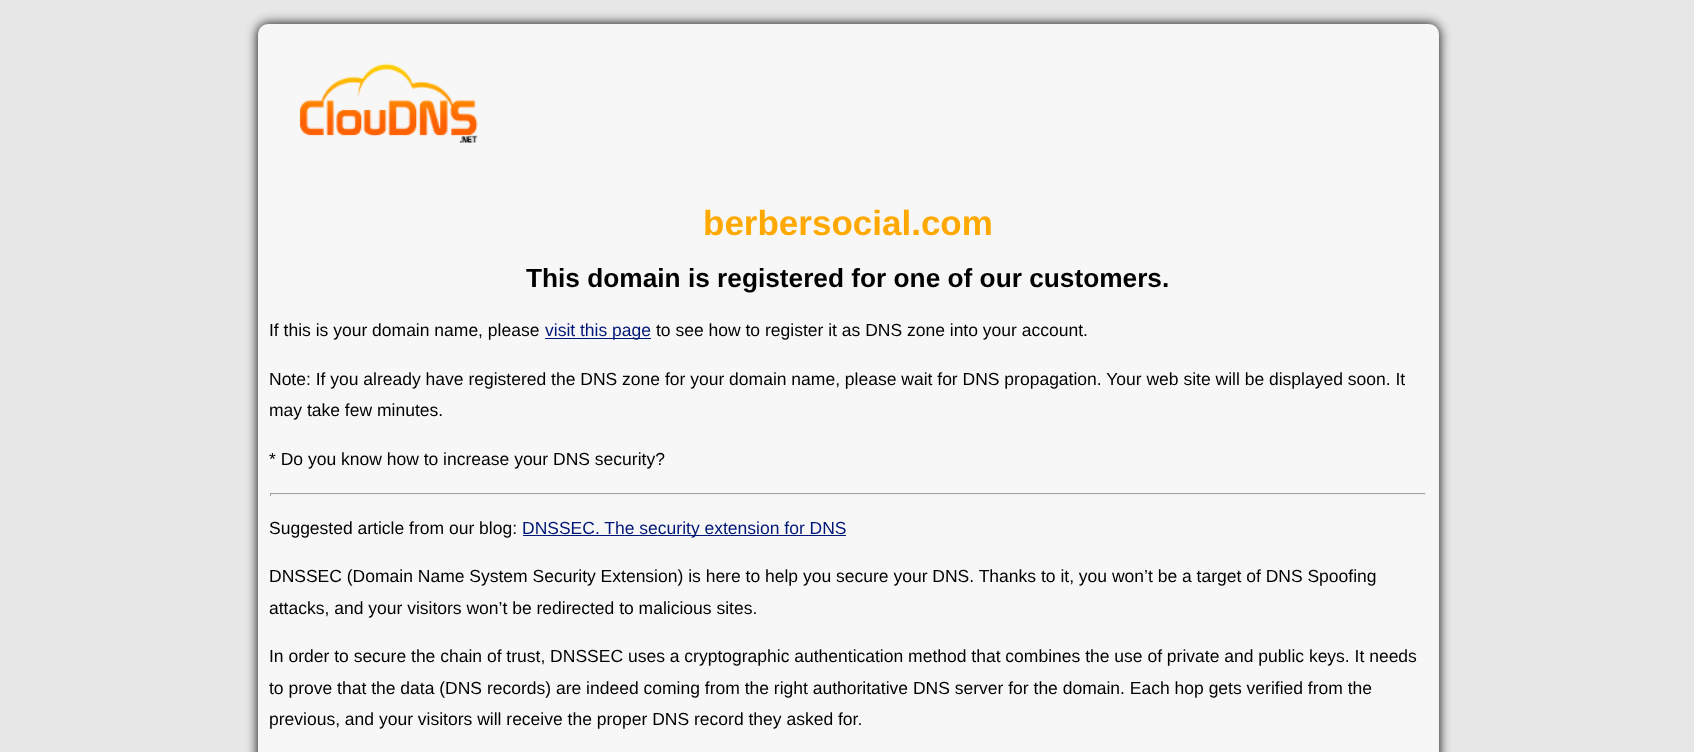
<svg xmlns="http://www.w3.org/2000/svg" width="1694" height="752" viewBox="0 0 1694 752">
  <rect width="100%" height="100%" fill="rgb(231,231,231)"/>
  <rect x="258" y="24" width="1181" height="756" rx="10" fill="rgb(0,0,0)" filter="blur(6px)"/>
  <rect x="258" y="24" width="1181" height="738" rx="10" fill="rgb(247,247,247)"/>
  <image x="299" y="63" width="179" height="80" href="pic1.png"/>
  <text x="703" y="235" font-family="Liberation Sans" font-size="35" font-weight="bold" fill="rgb(255,169,0)">berbersocial.com</text>
  <text x="526" y="287" font-family="Liberation Sans" font-size="26.25" font-weight="bold" fill="rgb(0,0,0)">This domain is registered for one of our customers.</text>
  <text x="269" y="336" font-family="Liberation Sans" font-size="17.5" fill="rgb(0,0,0)">If this is your domain name, please</text>
  <rect x="545" y="338" width="106" height="1" fill="rgb(0,22,119)"/>
  <text x="545" y="336" font-family="Liberation Sans" font-size="17.5" fill="rgb(0,22,119)">visit this page</text>
  <g font-family="Liberation Sans" font-size="17.5" fill="rgb(0,0,0)">
    <text x="656" y="336">to see how to register it as DNS zone into your account.</text>
    <text>
      <tspan x="269" y="385">Note: If you already have registered the DNS zone for your domain name, please wait for DNS propagation. Your web site will be displayed soon. It</tspan>
      <tspan x="269" y="416">may take few minutes.</tspan>
    </text>
    <text x="269" y="465">* Do you know how to increase your DNS security?</text>
  </g>
  <rect x="270" y="493" width="1156" height="1" fill="rgb(159,159,159)"/>
  <rect x="1425" y="493" width="1" height="3" fill="rgb(238,238,238)"/>
  <rect x="270" y="494" width="1156" height="1" fill="rgb(238,238,238)"/>
  <rect x="270" y="493" width="1" height="3" fill="rgb(159,159,159)"/>
  <text x="269" y="534" font-family="Liberation Sans" font-size="17.5" fill="rgb(0,0,0)">Suggested article from our blog:</text>
  <rect x="523" y="535" width="323" height="1" fill="rgb(0,22,119)"/>
  <text x="522" y="534" font-family="Liberation Sans" font-size="17.5" fill="rgb(0,22,119)">DNSSEC. The security extension for DNS</text>
  <g font-family="Liberation Sans" font-size="17.5" fill="rgb(0,0,0)">
    <text>
      <tspan x="269" y="582">DNSSEC (Domain Name System Security Extension) is here to help you secure your DNS. Thanks to it, you won’t be a target of DNS Spoofing</tspan>
      <tspan x="269" y="614">attacks, and your visitors won’t be redirected to malicious sites.</tspan>
    </text>
    <text>
      <tspan x="269" y="662">In order to secure the chain of trust, DNSSEC uses a cryptographic authentication method that combines the use of private and public keys. It needs</tspan>
      <tspan x="269" y="694">to prove that the data (DNS records) are indeed coming from the right authoritative DNS server for the domain. Each hop gets verified from the</tspan>
      <tspan x="269" y="725">previous, and your visitors will receive the proper DNS record they asked for.</tspan>
    </text>
  </g>
</svg>
